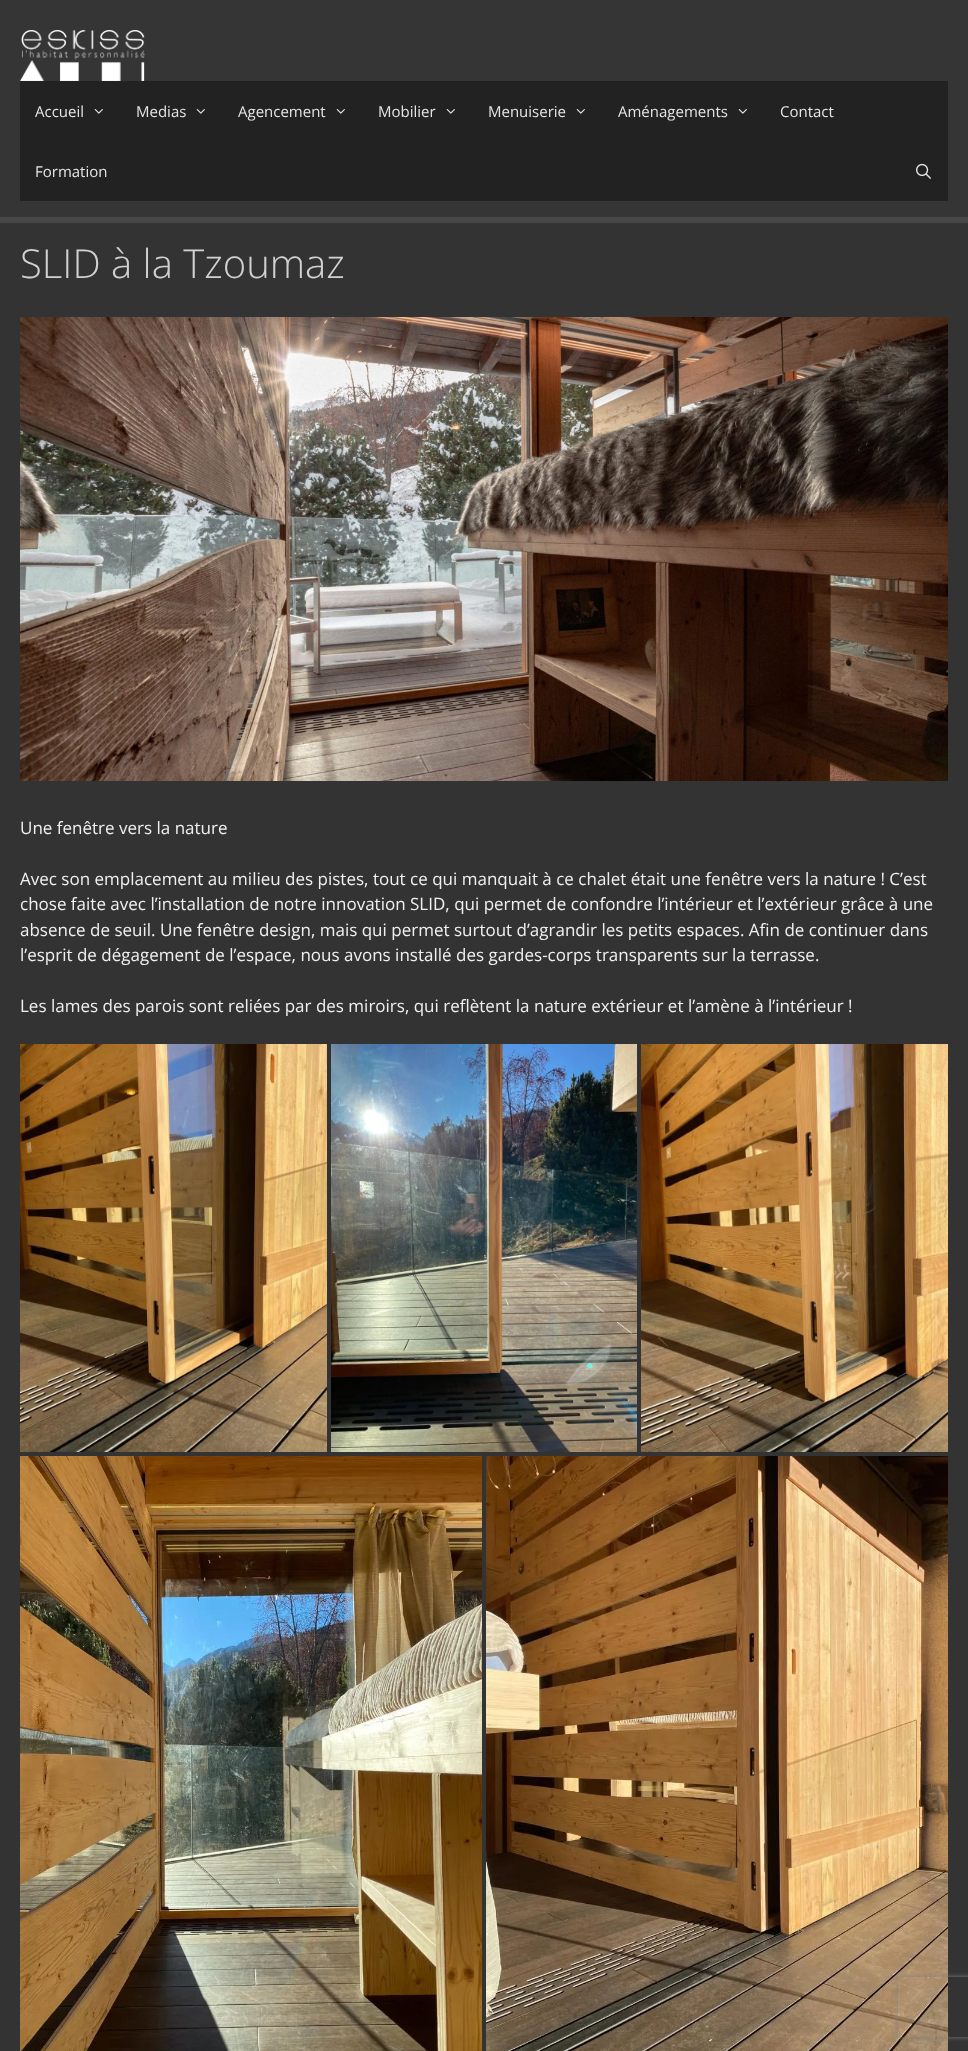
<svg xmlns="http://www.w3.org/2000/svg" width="968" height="2051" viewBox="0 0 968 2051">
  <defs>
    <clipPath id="clip1"><path d="M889 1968H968V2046H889ZM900 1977H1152C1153 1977 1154 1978 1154 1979V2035C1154 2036 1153 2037 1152 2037H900C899 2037 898 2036 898 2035V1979C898 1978 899 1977 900 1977Z" clip-rule="evenodd"/></clipPath>
  </defs>
  <rect width="100%" height="100%" fill="rgb(71,71,71)"/>
  <rect x="0" y="0" width="968" height="217" fill="rgb(53,53,53)"/>
  <image x="20" y="30" width="125" height="51" href="pic1.png"/>
  <rect x="20" y="81" width="928" height="120" fill="rgb(34,34,34)"/>
  <text x="35" y="117" font-family="Open Sans" font-size="15" fill="rgb(229,229,229)">Accueil</text>
  <image x="94" y="109" width="9" height="5" href="pic2.png"/>
  <text x="136" y="117" font-family="Open Sans" font-size="15" fill="rgb(229,229,229)">Medias</text>
  <image x="196" y="109" width="9" height="5" href="pic2.png"/>
  <text x="238" y="117" font-family="Open Sans" font-size="15" fill="rgb(229,229,229)">Agencement</text>
  <image x="336" y="109" width="9" height="5" href="pic2.png"/>
  <text x="378" y="117" font-family="Open Sans" font-size="15" fill="rgb(229,229,229)">Mobilier</text>
  <image x="446" y="109" width="9" height="5" href="pic2.png"/>
  <text x="488" y="117" font-family="Open Sans" font-size="15" fill="rgb(229,229,229)">Menuiserie</text>
  <image x="576" y="109" width="9" height="5" href="pic2.png"/>
  <text x="618" y="117" font-family="Open Sans" font-size="15" fill="rgb(229,229,229)">Aménagements</text>
  <image x="738" y="109" width="9" height="5" href="pic2.png"/>
  <g font-family="Open Sans" font-size="15" fill="rgb(229,229,229)">
    <text x="780" y="117">Contact</text>
    <text x="35" y="177">Formation</text>
  </g>
  <image x="916" y="163" width="15" height="16" href="pic3.png"/>
  <rect x="0" y="223" width="968" height="1828" fill="rgb(51,51,51)"/>
  <text x="20" y="278" font-family="Open Sans" font-size="40" font-weight="300" fill="rgb(209,209,209)">SLID à la Tzoumaz</text>
  <image x="20" y="317" width="928" height="464" href="pic4.png"/>
  <g font-family="Open Sans" font-size="17" fill="rgb(240,240,240)">
    <text x="20" y="834">Une fenêtre vers la nature</text>
    <text>
      <tspan x="20" y="885">Avec son emplacement au milieu des pistes, tout ce qui manquait à ce chalet était une fenêtre vers la nature ! C’est</tspan>
      <tspan x="20" y="910">chose faite avec l’installation de notre innovation SLID, qui permet de confondre l’intérieur et l’extérieur grâce à une</tspan>
      <tspan x="20" y="936">absence de seuil. Une fenêtre design, mais qui permet surtout d’agrandir les petits espaces. Afin de continuer dans</tspan>
      <tspan x="20" y="961">l’esprit de dégagement de l’espace, nous avons installé des gardes-corps transparents sur la terrasse.</tspan>
    </text>
    <text x="20" y="1012">Les lames des parois sont reliées par des miroirs, qui reflètent la nature extérieur et l’amène à l’intérieur !</text>
  </g>
  <image x="20" y="1044" width="307" height="408" href="pic5.png"/>
  <image x="331" y="1044" width="306" height="408" href="pic6.png"/>
  <image x="641" y="1044" width="307" height="408" href="pic7.png"/>
  <image x="20" y="1456" width="462" height="595" href="pic8.png"/>
  <image x="486" y="1456" width="462" height="595" href="pic9.png"/>
  <g clip-path="url(#clip1)">
    <rect x="898" y="1977" width="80" height="60" rx="2" fill="rgb(128,128,128)" filter="blur(2.5px)"/>
  </g>
</svg>
